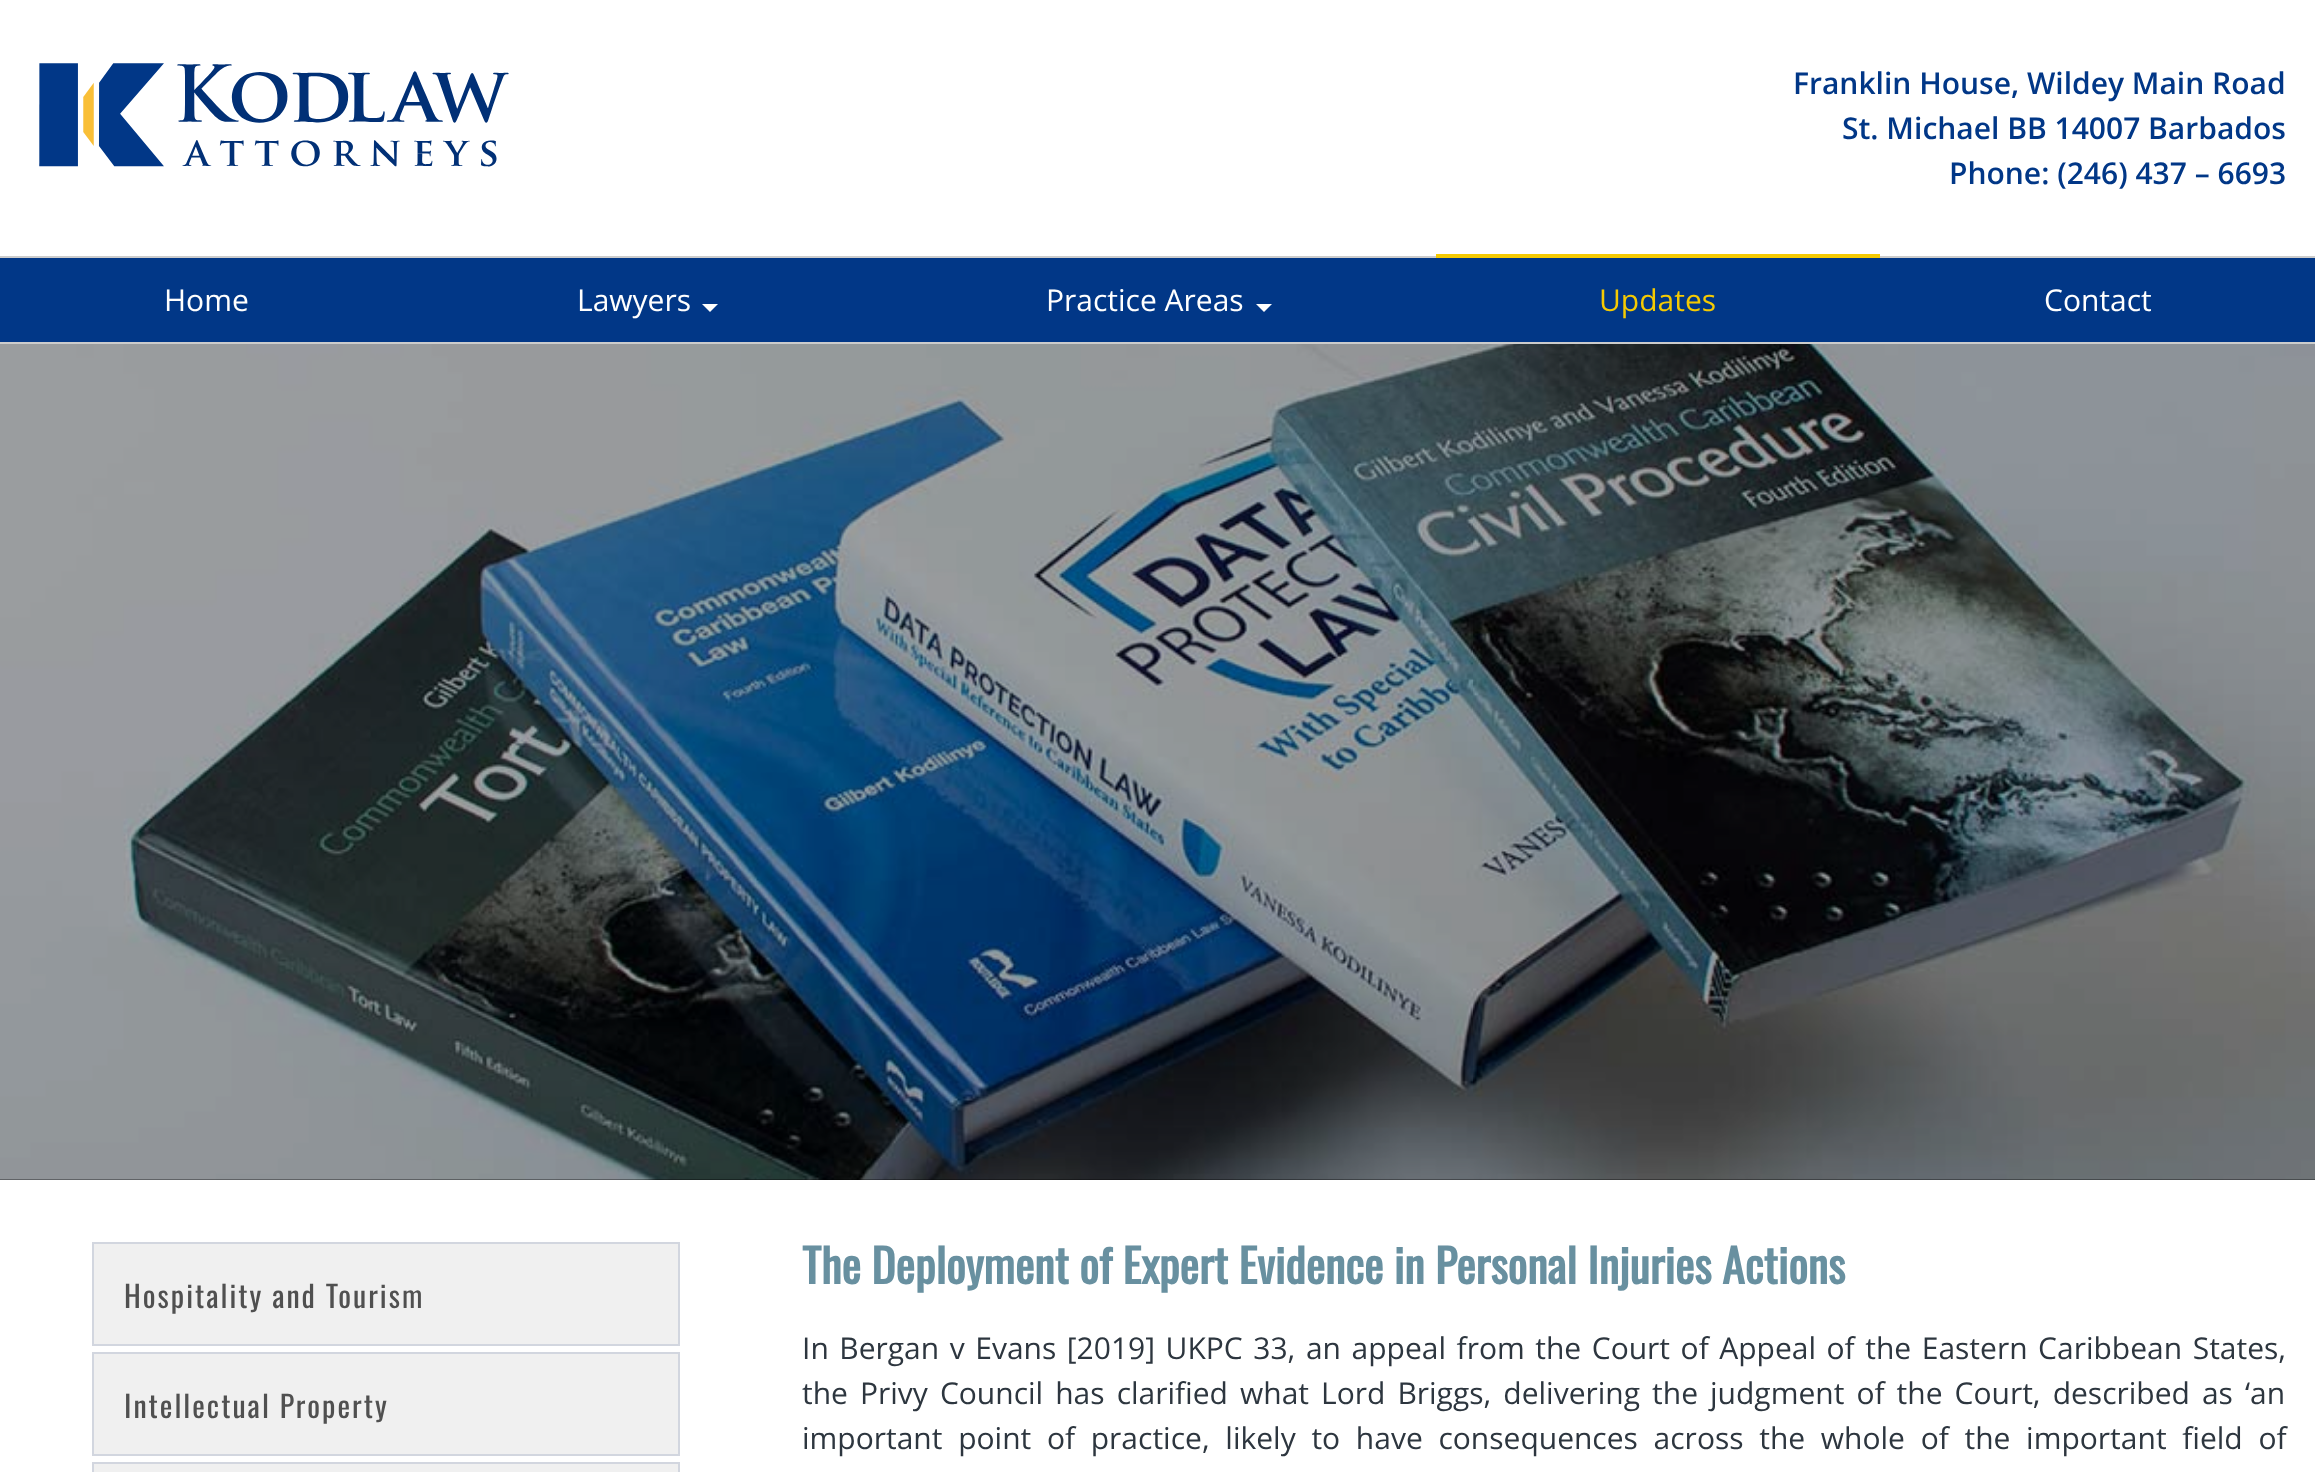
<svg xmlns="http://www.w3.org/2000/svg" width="2315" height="1472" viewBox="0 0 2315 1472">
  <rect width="100%" height="100%" fill="rgb(255,255,255)"/>
  <image x="39" y="63" width="470" height="104" href="pic1.png"/>
  <g font-family="Open Sans" font-size="30" font-weight="600" fill="rgb(1,55,135)">
    <text x="1793" y="94">Franklin House, Wildey Main Road</text>
    <text x="1842" y="139">St. Michael BB 14007 Barbados</text>
    <text x="1949" y="184">Phone: (246) 437 – 6693</text>
  </g>
  <rect x="0" y="258" width="2315" height="84" fill="rgb(1,55,135)"/>
  <rect x="0" y="256" width="2315" height="2" fill="rgb(204,204,204)"/>
  <rect x="0" y="342" width="2315" height="2" fill="rgb(204,204,204)"/>
  <g font-family="Open Sans" font-size="30" fill="rgb(255,255,255)">
    <text x="164" y="311">Home</text>
    <text x="577" y="311">Lawyers</text>
  </g>
  <path d="M702 304H718L710 312Z" fill="rgb(255,255,255)"/>
  <text x="1046" y="311" font-family="Open Sans" font-size="30" fill="rgb(255,255,255)">Practice Areas</text>
  <path d="M1256 304H1272L1264 312Z" fill="rgb(255,255,255)"/>
  <rect x="1436" y="254" width="444" height="4" fill="rgb(245,202,2)"/>
  <text x="1599" y="311" font-family="Open Sans" font-size="30" fill="rgb(245,202,2)">Updates</text>
  <text x="2044" y="311" font-family="Open Sans" font-size="30" fill="rgb(255,255,255)">Contact</text>
  <rect x="0" y="344" width="2315" height="836" fill="rgb(0,0,0)"/>
  <image x="0" y="344" width="2315" height="836" href="pic2.png"/>
  <rect x="93" y="1243" width="586" height="102" fill="rgb(240,240,240)" stroke="rgb(210,214,223)" stroke-width="2"/>
  <text x="124" y="1308" font-family="Oswald" font-size="30" letter-spacing="2" fill="rgb(80,80,80)">Hospitality and Tourism</text>
  <rect x="93" y="1353" width="586" height="102" fill="rgb(240,240,240)" stroke="rgb(210,214,223)" stroke-width="2"/>
  <text x="124" y="1418" font-family="Oswald" font-size="30" letter-spacing="2" fill="rgb(80,80,80)">Intellectual Property</text>
  <rect x="93" y="1463" width="586" height="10" fill="rgb(240,240,240)" stroke="rgb(210,214,223)" stroke-width="2"/>
  <text x="802" y="1284" font-family="Oswald" font-size="46" font-weight="bold" fill="rgb(104,144,160)">The Deployment of Expert Evidence in Personal Injuries Actions</text>
  <g font-family="Open Sans" font-size="30" fill="rgb(45,54,63)">
    <text>
      <tspan x="802" y="1359" word-spacing="2.75">In Bergan v Evans [2019] UKPC 33, an appeal from the Court of Appeal of the Eastern Caribbean States,</tspan>
      <tspan x="802" y="1404" word-spacing="4.25">the Privy Council has clarified what Lord Briggs, delivering the judgment of the Court, described as ‘an</tspan>
      <tspan x="802" y="1449" word-spacing="7.9">important point of practice, likely to have consequences across the whole of the important field of</tspan>
    </text>
  </g>
</svg>
